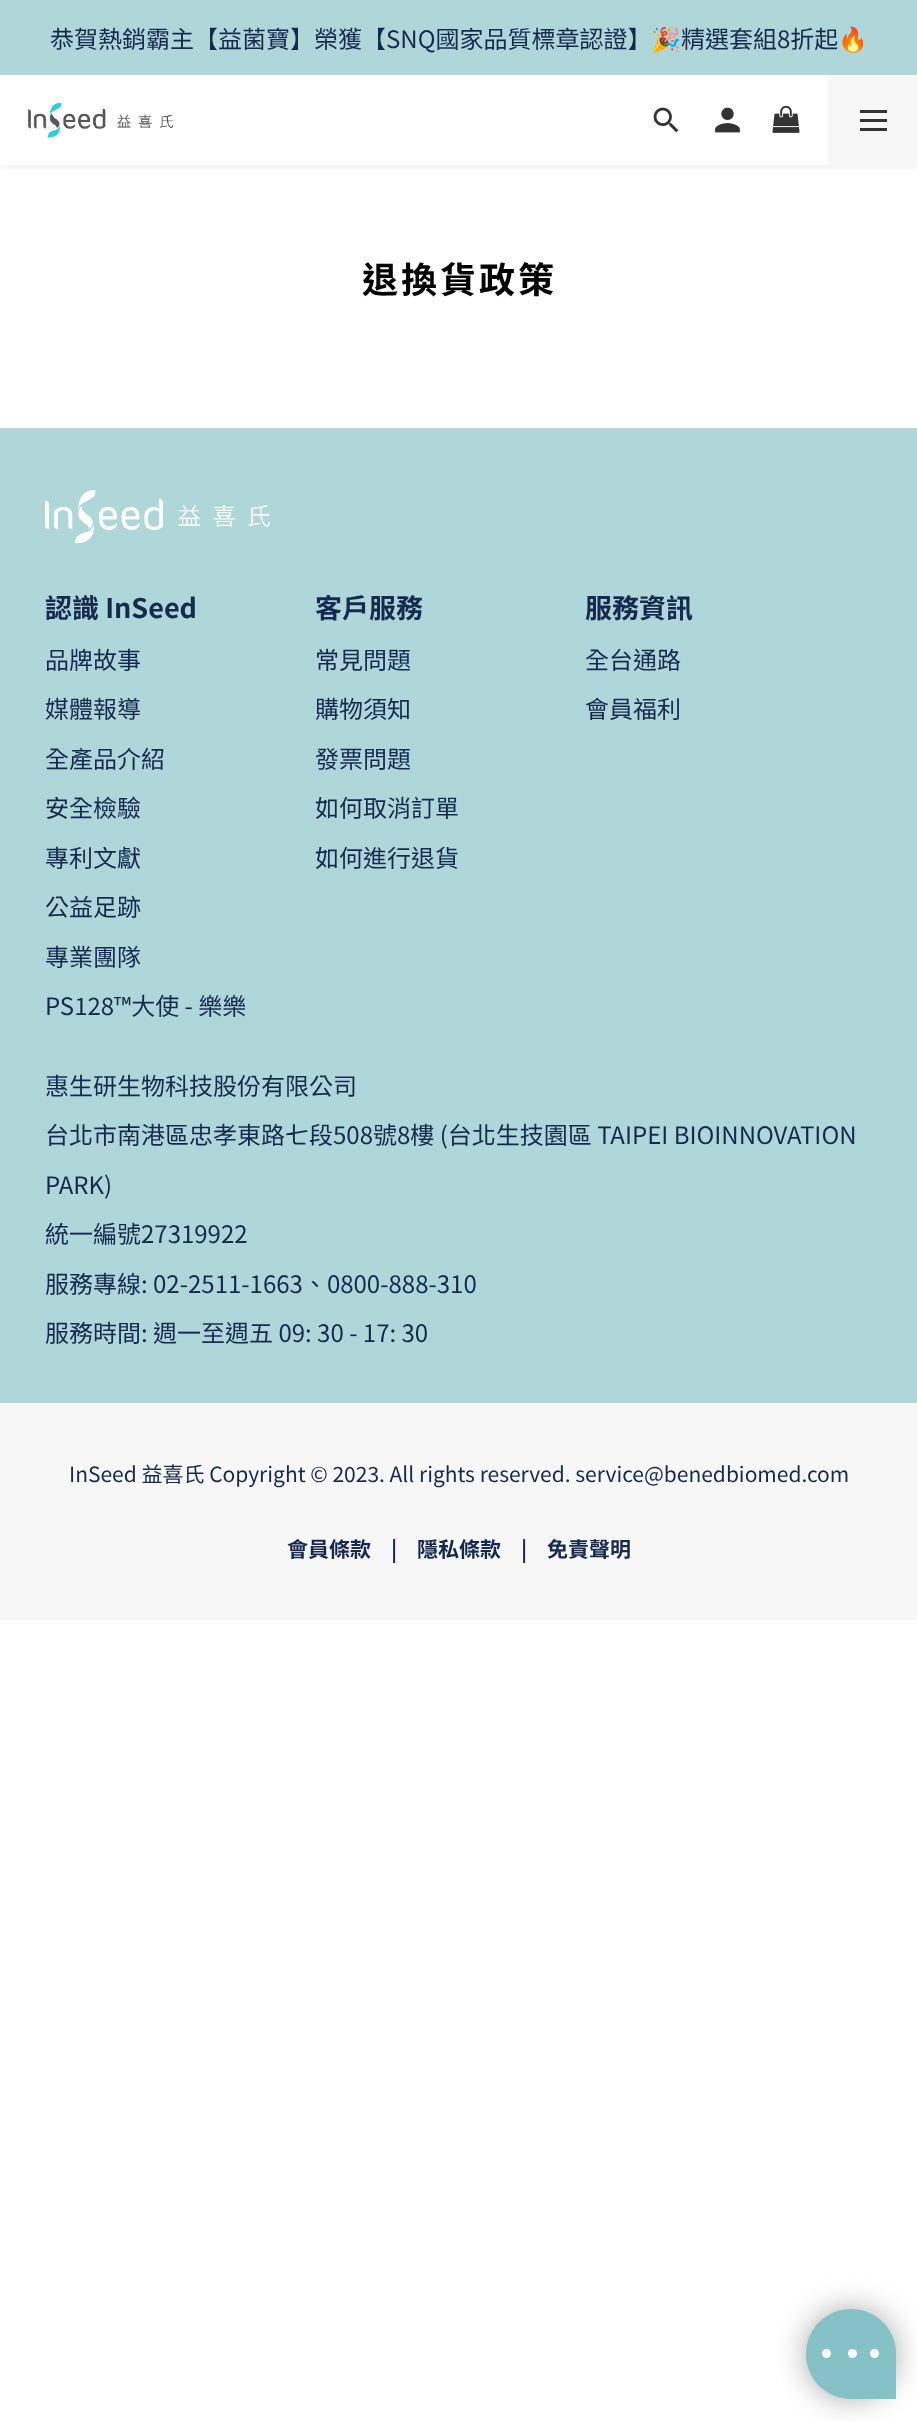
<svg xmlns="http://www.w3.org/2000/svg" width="917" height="2421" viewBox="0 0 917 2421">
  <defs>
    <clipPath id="clip1"><rect x="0" y="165" width="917" height="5"/></clipPath>
  </defs>
  <rect width="100%" height="100%" fill="rgb(255,255,255)"/>
  <g clip-path="url(#clip1)">
    <rect x="0" y="78" width="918" height="90" fill="rgba(0,0,0,0.06)" filter="blur(4.5px)"/>
  </g>
  <rect x="0" y="0" width="917" height="75" fill="rgb(175,214,217)"/>
  <text x="50" y="48" font-family="Noto Sans TC" font-size="24" fill="rgb(22,42,80)">恭賀熱銷霸主【益菌寶】榮獲【SNQ國家品質標章認證】</text>
  <text x="651" y="48" font-family="Noto Color Emoji" font-size="24" fill="rgb(22,42,80)">🎉</text>
  <text x="681" y="48" font-family="Noto Sans TC" font-size="24" fill="rgb(22,42,80)">精選套組8折起</text>
  <text x="838" y="48" font-family="Noto Color Emoji" font-size="24" fill="rgb(22,42,80)">🔥</text>
  <image x="27" y="102" width="146" height="36" href="pic1.png"/>
  <image x="653" y="107" width="26" height="26" href="pic2.png"/>
  <image x="715" y="107" width="25" height="26" href="pic3.png"/>
  <image x="772" y="105" width="28" height="28" href="pic4.png"/>
  <rect x="828" y="75" width="89" height="90" fill="rgb(247,247,247)"/>
  <rect x="860" y="119" width="27" height="3" fill="rgb(51,51,51)"/>
  <rect x="860" y="110" width="27" height="3" fill="rgb(51,51,51)"/>
  <rect x="860" y="128" width="27" height="3" fill="rgb(51,51,51)"/>
  <text x="362" y="293" font-family="Noto Sans TC" font-size="36" font-weight="bold" letter-spacing="3" fill="rgb(0,0,0)">退換貨政策</text>
  <rect x="0" y="430" width="917" height="973" fill="rgb(175,214,217)"/>
  <rect x="0" y="428" width="917" height="2" fill="rgb(190,209,211)"/>
  <image x="45" y="489" width="225" height="54" href="pic5.png"/>
  <text x="45" y="618" font-family="Noto Sans TC" font-size="27" font-weight="bold" fill="rgb(22,42,80)">認識 InSeed</text>
  <g font-family="Noto Sans TC" font-size="24" fill="rgb(22,42,80)">
    <text x="45" y="669">品牌故事</text>
    <text x="45" y="718">媒體報導</text>
    <text x="45" y="768">全產品介紹</text>
    <text x="45" y="817">安全檢驗</text>
    <text x="45" y="867">專利文獻</text>
    <text x="45" y="916">公益足跡</text>
    <text x="45" y="966">專業團隊</text>
    <text x="45" y="1015">PS128™大使 - 樂樂</text>
  </g>
  <text x="315" y="618" font-family="Noto Sans TC" font-size="27" font-weight="bold" fill="rgb(22,42,80)">客戶服務</text>
  <g font-family="Noto Sans TC" font-size="24" fill="rgb(22,42,80)">
    <text x="315" y="669">常見問題</text>
    <text x="315" y="718">購物須知</text>
    <text x="315" y="768">發票問題</text>
    <text x="315" y="817">如何取消訂單</text>
    <text x="315" y="867">如何進行退貨</text>
  </g>
  <text x="585" y="618" font-family="Noto Sans TC" font-size="27" font-weight="bold" fill="rgb(22,42,80)">服務資訊</text>
  <g font-family="Noto Sans TC" font-size="24" fill="rgb(22,42,80)">
    <text x="585" y="669">全台通路</text>
    <text x="585" y="718">會員福利</text>
    <text x="45" y="1095">惠生研生物科技股份有限公司</text>
    <text x="45" y="1144">台北市南港區忠孝東路七段508號8樓 (台北生技園區 TAIPEI BIOINNOVATION</text>
    <text x="45" y="1194">PARK)</text>
    <text x="45" y="1243">統一編號27319922</text>
    <text x="45" y="1293">服務專線: 02-2511-1663、0800-888-310</text>
    <text x="45" y="1342">服務時間: 週一至週五 09: 30 - 17: 30</text>
  </g>
  <rect x="0" y="1403" width="917" height="217" fill="rgb(247,247,247)"/>
  <text x="69" y="1482" font-family="Noto Sans TC" font-size="21" fill="rgb(22,42,80)">InSeed 益喜氏 Copyright © 2023. All rights reserved. service@benedbiomed.com</text>
  <g font-family="Noto Sans TC" font-size="21" font-weight="bold" fill="rgb(22,42,80)">
    <text x="287" y="1557">會員條款</text>
    <text x="391" y="1557">|</text>
    <text x="417" y="1557">隱私條款</text>
    <text x="521" y="1557">|</text>
    <text x="547" y="1557">免責聲明</text>
  </g>
  <rect x="806" y="2309" width="90" height="90" rx="45" fill="rgba(119,119,119,0.64)" filter="blur(15px)"/>
  <path d="M851 2309C876 2309 896 2329 896 2354V2399H851C826 2399 806 2379 806 2354C806 2329 826 2309 851 2309Z" fill="rgb(133,193,198)"/>
  <circle cx="826.5" cy="2353.5" r="4.5" fill="rgb(255,255,255)"/>
  <circle cx="852.5" cy="2353.5" r="4.5" fill="rgb(255,255,255)"/>
  <circle cx="874.5" cy="2353.5" r="4.5" fill="rgb(255,255,255)"/>
</svg>
